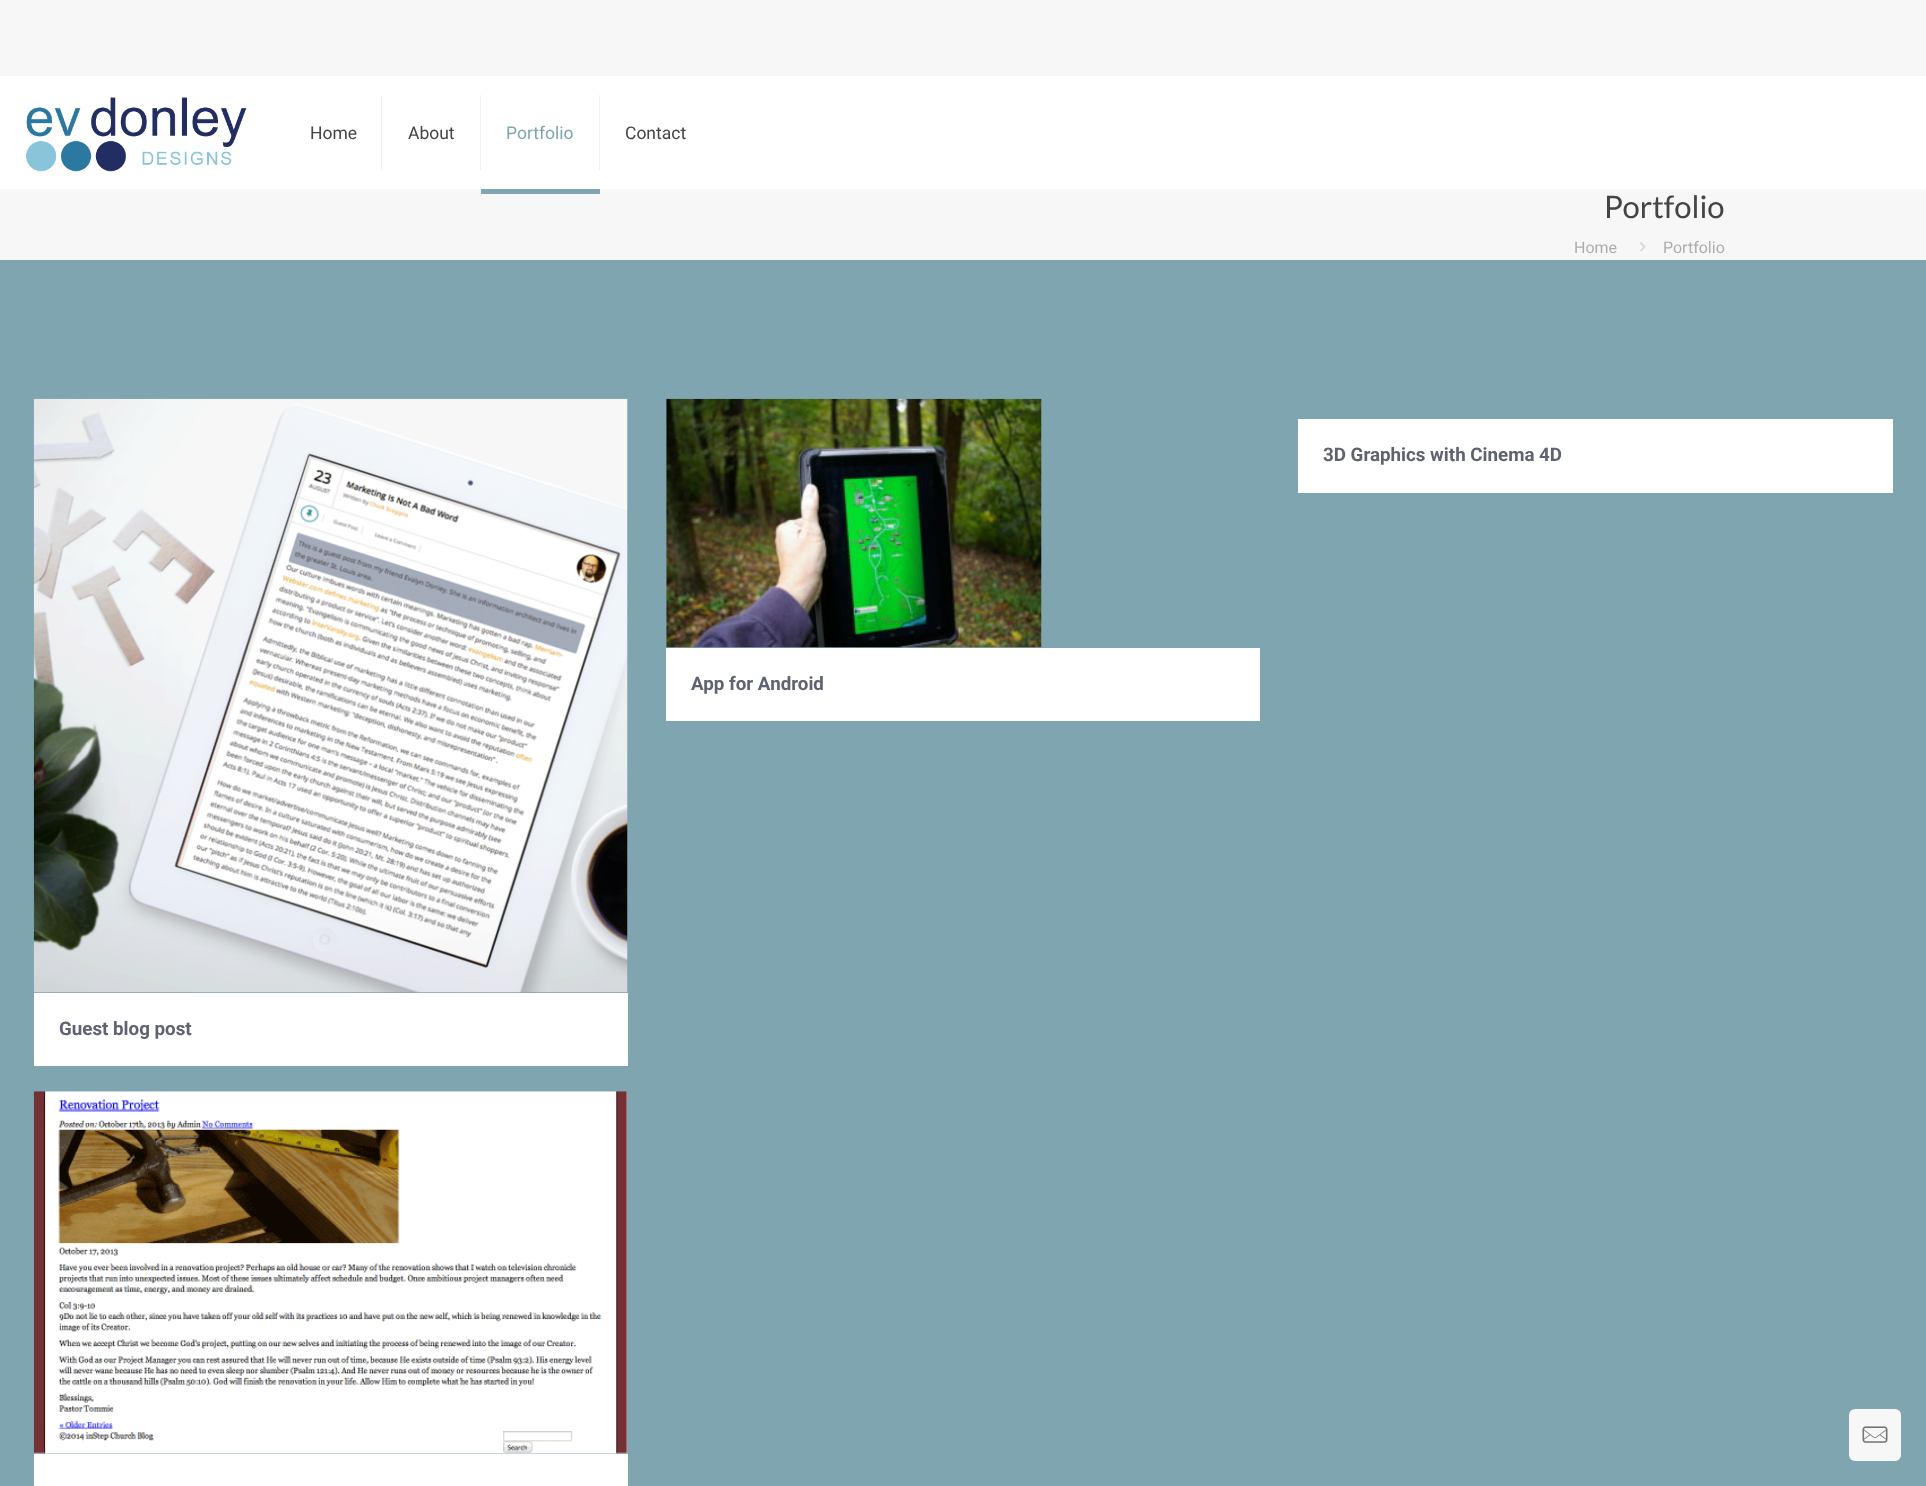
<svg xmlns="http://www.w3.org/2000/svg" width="1926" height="1486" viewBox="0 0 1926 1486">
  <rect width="100%" height="100%" fill="rgb(247,247,247)"/>
  <rect x="0" y="76" width="1926" height="113" fill="rgb(255,255,255)"/>
  <image x="26" y="97" width="221" height="75" href="pic1.png"/>
  <rect x="381" y="95" width="1" height="75" fill="rgb(242,242,242)"/>
  <text x="310" y="139" font-family="Roboto" font-size="17.5" fill="rgb(68,68,68)">Home</text>
  <rect x="480" y="95" width="1" height="75" fill="rgb(242,242,242)"/>
  <text x="408" y="139" font-family="Roboto" font-size="17.5" fill="rgb(68,68,68)">About</text>
  <rect x="599" y="95" width="1" height="75" fill="rgb(242,242,242)"/>
  <text x="506" y="139" font-family="Roboto" font-size="17.5" fill="rgb(127,165,176)">Portfolio</text>
  <rect x="481" y="189" width="119" height="5" fill="rgb(127,165,176)"/>
  <text x="625" y="139" font-family="Roboto" font-size="17.5" fill="rgb(68,68,68)">Contact</text>
  <text x="1604" y="218" font-family="Lato" font-size="31" fill="rgb(68,68,68)">Portfolio</text>
  <text x="1574" y="253" font-family="Roboto" font-size="16" fill="rgb(173,173,173)">Home</text>
  <image x="1640" y="242" width="6" height="10" href="pic2.png"/>
  <text x="1663" y="253" font-family="Roboto" font-size="16" fill="rgb(173,173,173)">Portfolio</text>
  <rect x="0" y="260" width="1926" height="1226" fill="rgb(127,165,176)"/>
  <rect x="1298" y="419" width="595" height="74" fill="rgb(255,255,255)"/>
  <text x="1323" y="461" font-family="Roboto" font-size="18.75" font-weight="bold" fill="rgb(95,98,113)">3D Graphics with Cinema 4D</text>
  <image x="666" y="398" width="376" height="250" href="pic3.png"/>
  <rect x="666" y="648" width="594" height="73" fill="rgb(255,255,255)"/>
  <text x="691" y="690" font-family="Roboto" font-size="18.75" font-weight="bold" fill="rgb(95,98,113)">App for Android</text>
  <image x="33" y="398" width="595" height="595" href="pic4.png"/>
  <rect x="34" y="993" width="594" height="73" fill="rgb(255,255,255)"/>
  <text x="59" y="1035" font-family="Roboto" font-size="18.75" font-weight="bold" fill="rgb(95,98,113)">Guest blog post</text>
  <image x="33" y="1091" width="595" height="363" href="pic5.png"/>
  <rect x="34" y="1454" width="594" height="32" fill="rgb(255,255,255)"/>
  <rect x="1849" y="1409" width="52" height="52" rx="6" fill="rgb(247,247,247)"/>
  <image x="1862" y="1426" width="26" height="17" href="pic6.png"/>
</svg>
